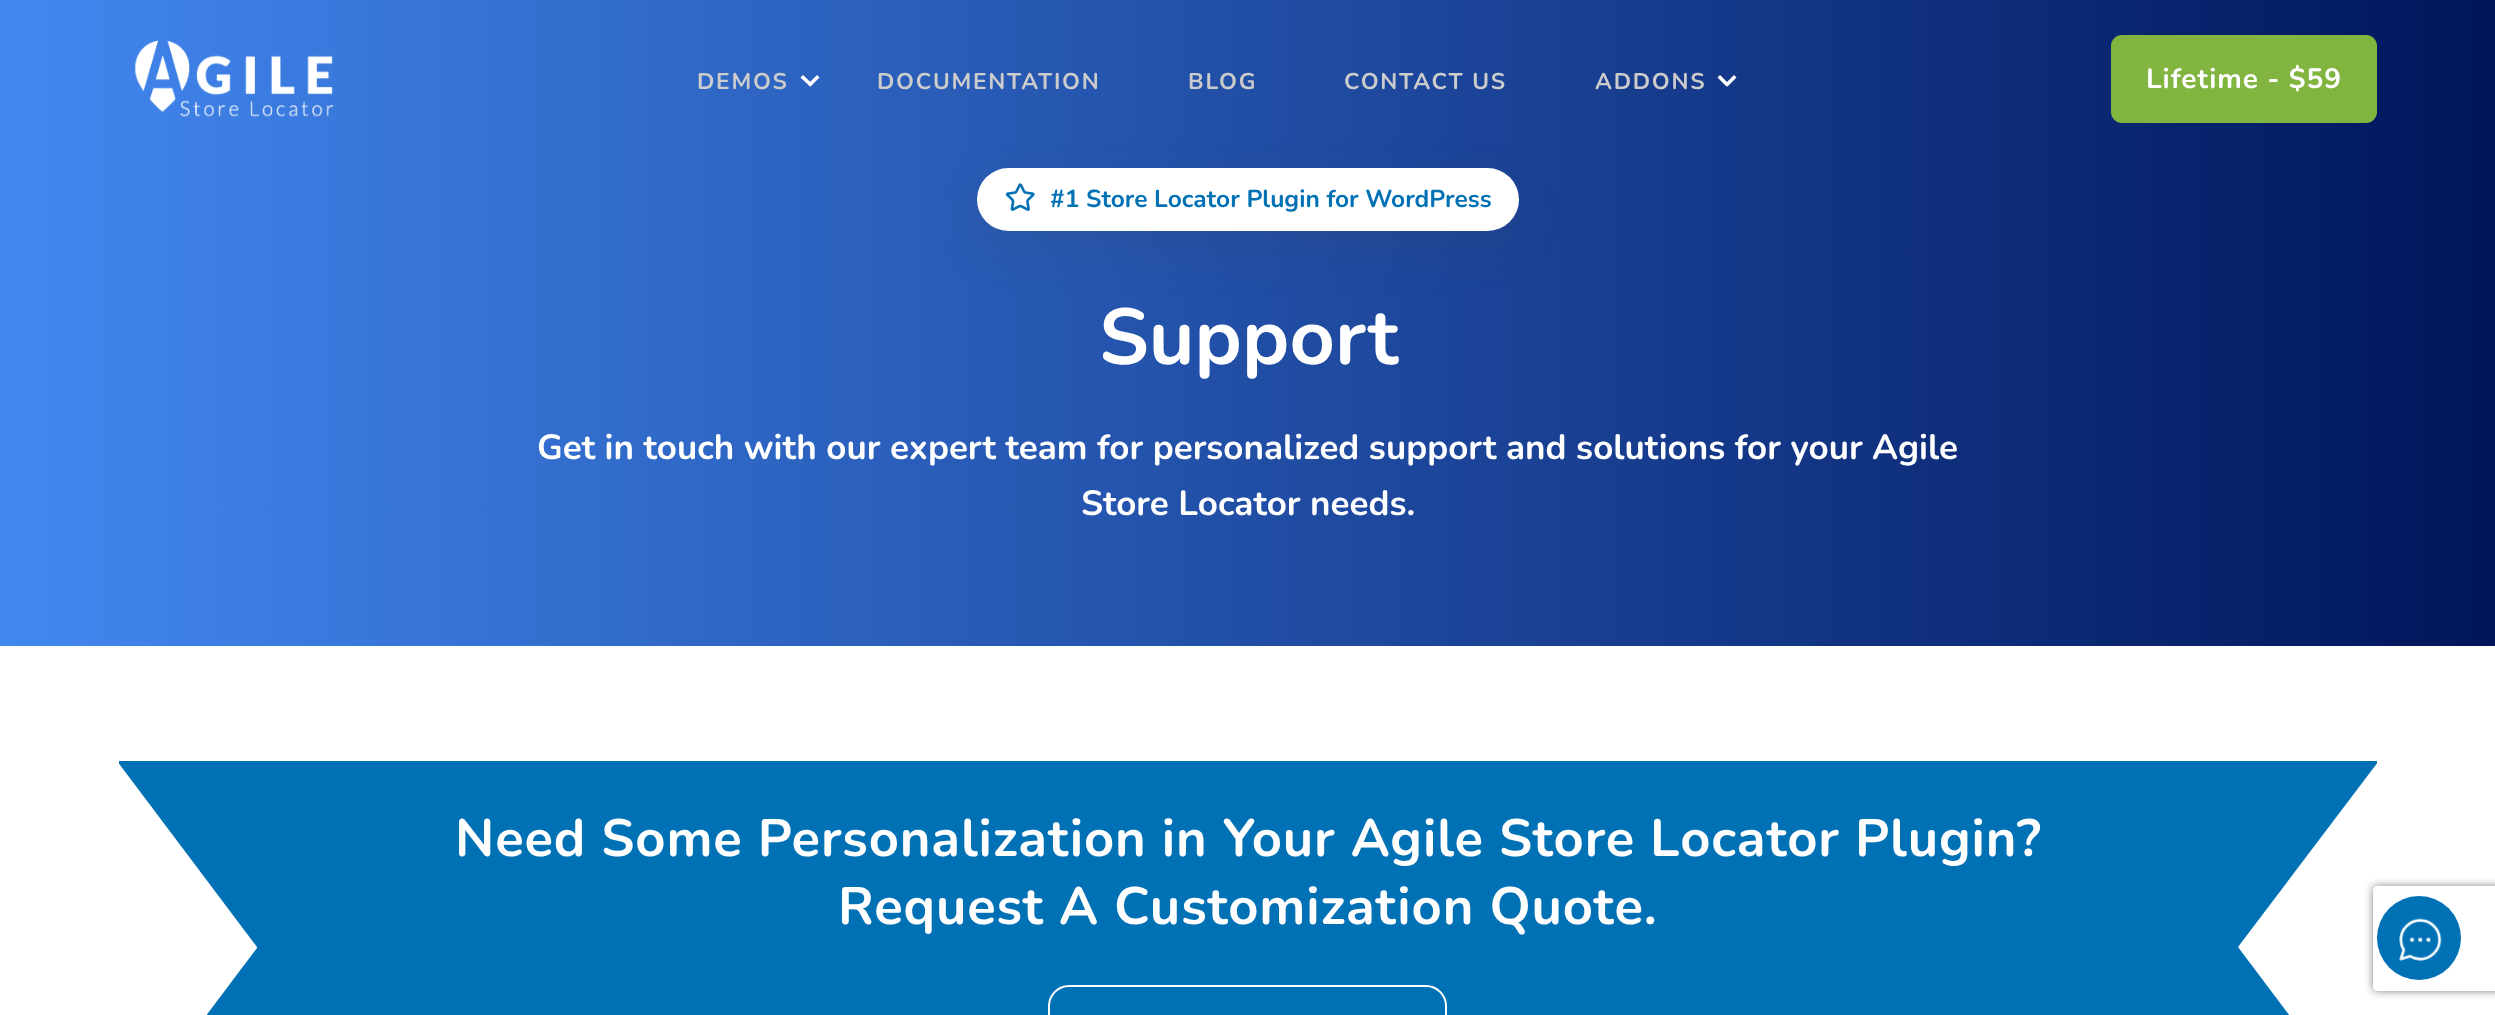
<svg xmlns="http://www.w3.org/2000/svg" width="2495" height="1015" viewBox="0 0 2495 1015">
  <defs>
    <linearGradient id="g1" gradientUnits="userSpaceOnUse" x1="0" y1="323" x2="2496" y2="323"><stop offset="0" stop-color="rgb(66,136,240)"/><stop offset="1" stop-color="rgb(0,21,91)"/></linearGradient>
    <clipPath id="clip1"><path d="M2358 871H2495V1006H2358ZM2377 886H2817C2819 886 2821 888 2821 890V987C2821 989 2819 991 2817 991H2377C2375 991 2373 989 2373 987V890C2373 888 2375 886 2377 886Z" clip-rule="evenodd"/></clipPath>
  </defs>
  <rect width="100%" height="100%" fill="rgb(255,255,255)"/>
  <rect x="0" y="0" width="2495" height="646" fill="url(#g1)"/>
  <image x="134" y="40" width="200" height="77" href="pic1.png"/>
  <text x="697" y="89" font-family="Nunito" font-size="22.75" font-weight="bold" letter-spacing="1.75" fill="rgb(204,204,204)">DEMOS</text>
  <path d="M817 75L819.5 77.5L810.5 86.5L808 84Z" fill="rgb(255,255,255)"/>
  <path d="M803 75L812.5 84L810 86.5L800.5 77.5Z" fill="rgb(255,255,255)"/>
  <g font-family="Nunito" font-size="22.75" font-weight="bold" letter-spacing="1.75" fill="rgb(204,204,204)">
    <text x="877" y="89">DOCUMENTATION</text>
    <text x="1188" y="89">BLOG</text>
    <text x="1344" y="89">CONTACT US</text>
    <text x="1595" y="89">ADDONS</text>
  </g>
  <path d="M1734 75L1736.5 77.5L1727.5 86.5L1725 84Z" fill="rgb(255,255,255)"/>
  <path d="M1720 75L1729 84L1726.5 86.5L1717.5 77.5Z" fill="rgb(255,255,255)"/>
  <rect x="2111" y="35" width="266" height="88" rx="11" fill="rgb(130,180,64)"/>
  <text x="2146" y="88" font-family="Nunito" font-size="28" font-weight="bold" letter-spacing="0.88" fill="rgb(255,255,255)">Lifetime - $59</text>
  <rect x="977" y="186" width="542" height="63" rx="31.5" fill="rgba(60,72,88,0.15)" filter="blur(22px)"/>
  <rect x="977" y="168" width="542" height="63" rx="31.5" fill="rgb(255,255,255)"/>
  <image x="1005" y="183" width="30" height="28" href="pic2.png"/>
  <text x="1050" y="207" font-family="Nunito" font-size="24.5" font-weight="bold" fill="rgb(1,113,182)">#1 Store Locator Plugin for WordPress</text>
  <text x="1099" y="364" font-family="Nunito" font-size="79" font-weight="bold" fill="rgb(255,255,255)">Support</text>
  <g font-family="Nunito" font-size="35" font-weight="bold" fill="rgb(255,255,255)">
    <text x="537" y="459">Get in touch with our expert team for personalized support and solutions for your Agile</text>
    <text x="1081" y="515">Store Locator needs.</text>
  </g>
  <rect x="119" y="761" width="2258" height="254" fill="rgb(1,113,182)"/>
  <path d="M117 761L257 947V948L117 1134Z" fill="rgb(255,255,255)"/>
  <g font-family="Nunito" font-size="52.5" font-weight="bold" letter-spacing="0.88" fill="rgb(255,255,255)">
    <text x="455" y="856">Need Some Personalization in Your Agile Store Locator Plugin?</text>
    <text x="838" y="924">Request A Customization Quote.</text>
  </g>
  <path d="M2238 947L2378 762V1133Z" fill="rgb(255,255,255)"/>
  <rect x="1049" y="986" width="397" height="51" rx="20" fill="none" stroke="rgb(255,255,255)" stroke-width="2"/>
  <g clip-path="url(#clip1)">
    <rect x="2373" y="886" width="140" height="105" rx="4" fill="rgb(128,128,128)" filter="blur(4.5px)"/>
  </g>
  <circle cx="2419" cy="938" r="42" fill="rgb(1,113,182)"/>
  <image x="2399" y="918" width="43" height="43" href="pic3.png"/>
</svg>
